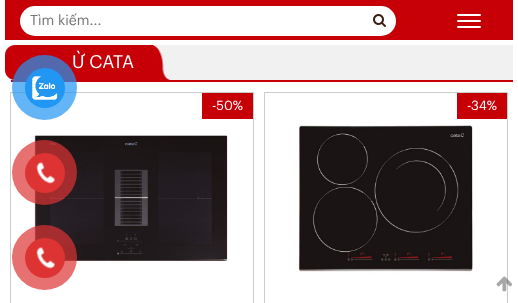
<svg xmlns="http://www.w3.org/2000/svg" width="518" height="303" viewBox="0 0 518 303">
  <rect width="100%" height="100%" fill="rgb(255,255,255)"/>
  <rect x="5" y="0" width="508" height="40" fill="rgb(199,0,8)"/>
  <rect x="20" y="6" width="376" height="30" rx="15" fill="rgb(255,255,255)"/>
  <text x="30" y="25" font-family="Graphik" font-size="14" fill="rgb(117,117,117)">Tìm kiếm...</text>
  <image x="373" y="14" width="13" height="13" href="pic1.png"/>
  <rect x="457" y="14" width="24" height="2" rx="1" fill="rgb(255,255,255)"/>
  <rect x="457" y="20" width="24" height="2" rx="1" fill="rgb(255,255,255)"/>
  <rect x="457" y="26" width="24" height="2" rx="1" fill="rgb(255,255,255)"/>
  <path d="M15 45H513V82H16C10 82 5 77 5 71V55C5 49.5 9.5 45 15 45Z" fill="rgb(241,241,241)"/>
  <rect x="11" y="80" width="502" height="2" fill="rgb(199,0,8)"/>
  <path d="M15 45H154V80H15C9.5 80 5 75.5 5 70V55C5 49.5 9.5 45 15 45Z" fill="rgb(199,0,8)"/>
  <text x="72" y="68" font-family="Graphik" font-size="18" fill="rgb(255,255,255)">Ừ CATA</text>
  <image x="153" y="45" width="17" height="35" href="pic2.png"/>
  <rect x="10.5" y="92.5" width="243" height="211" fill="none" stroke="rgb(204,204,204)"/>
  <rect x="202" y="93" width="51" height="26" fill="rgb(199,0,8)"/>
  <text x="212" y="110" font-family="Graphik" font-size="13" fill="rgb(255,255,255)">-50%</text>
  <image x="34" y="135" width="195" height="127" href="pic3.png"/>
  <rect x="264.5" y="92.5" width="243" height="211" fill="none" stroke="rgb(204,204,204)"/>
  <rect x="457" y="93" width="50" height="26" fill="rgb(199,0,8)"/>
  <text x="467" y="110" font-family="Graphik" font-size="13" fill="rgb(255,255,255)">-34%</text>
  <image x="298" y="125" width="175" height="148" href="pic4.png"/>
  <image x="496" y="276" width="17" height="16" href="pic5.png"/>
  <circle cx="44.5" cy="87.5" r="32.5" fill="rgba(33,150,243,0.7)"/>
  <circle cx="45" cy="88" r="20" fill="rgb(33,150,243)"/>
  <image x="32" y="76" width="26" height="24" href="pic6.png"/>
  <circle cx="44.5" cy="172.5" r="32.5" fill="rgba(221,51,51,0.7)"/>
  <circle cx="45" cy="173" r="20" fill="rgb(221,51,51)"/>
  <image x="36" y="162" width="19" height="22" href="pic7.png"/>
  <circle cx="44.5" cy="257.5" r="32.5" fill="rgba(221,51,51,0.7)"/>
  <circle cx="45" cy="258" r="20" fill="rgb(221,51,51)"/>
  <image x="36" y="247" width="19" height="22" href="pic7.png"/>
</svg>
